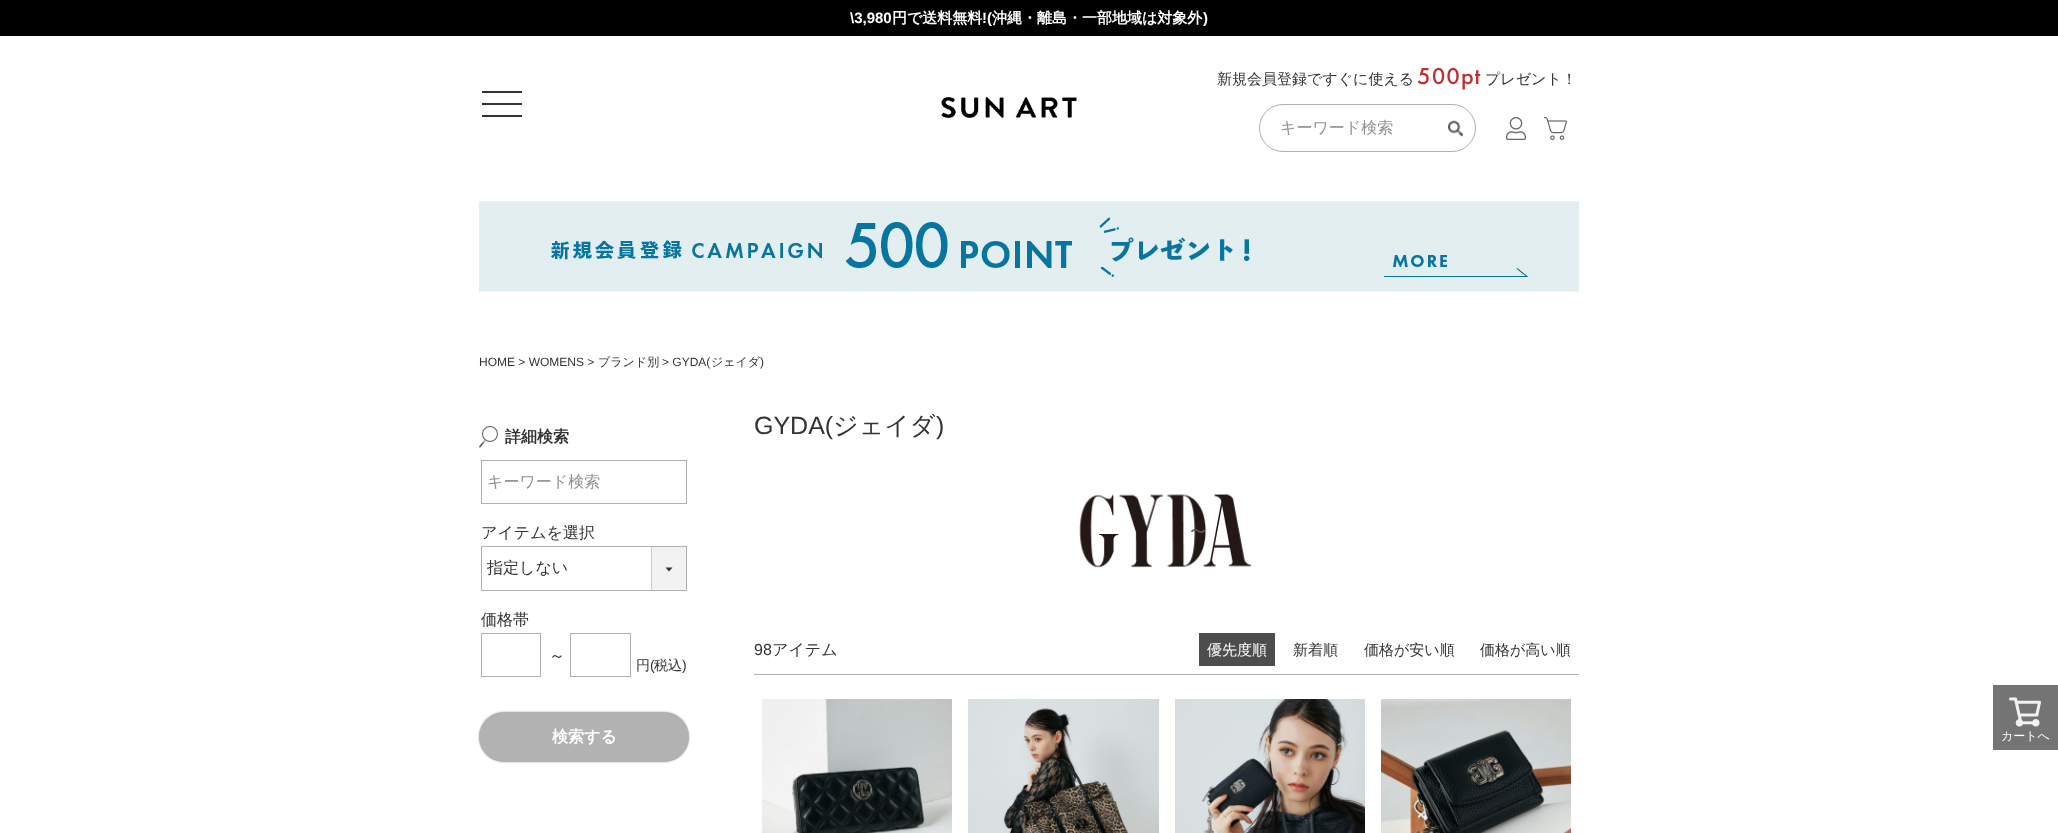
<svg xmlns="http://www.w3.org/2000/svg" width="2058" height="833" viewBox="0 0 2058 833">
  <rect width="100%" height="100%" fill="rgb(255,255,255)"/>
  <rect x="0" y="0" width="2058" height="36" fill="rgb(0,0,0)"/>
  <text x="850" y="23" font-family="Liberation Sans" font-size="15" font-weight="bold" fill="rgb(255,255,255)">\3,980</text>
  <text x="892" y="23" font-family="WenQuanYi Zen Hei" font-size="15" font-weight="bold" fill="rgb(255,255,255)">円で送料無料</text>
  <text x="982" y="23" font-family="Liberation Sans" font-size="15" font-weight="bold" fill="rgb(255,255,255)">!(</text>
  <text x="992" y="23" font-family="WenQuanYi Zen Hei" font-size="15" font-weight="bold" fill="rgb(255,255,255)">沖縄・離島・一部地域は対象外</text>
  <text x="1203" y="23" font-family="Liberation Sans" font-size="15" font-weight="bold" fill="rgb(255,255,255)">)</text>
  <rect x="482" y="103" width="40" height="2" fill="rgb(51,51,51)"/>
  <rect x="482" y="91" width="40" height="2" fill="rgb(51,51,51)"/>
  <rect x="482" y="115" width="40" height="2" fill="rgb(51,51,51)"/>
  <image x="941" y="97" width="136" height="21" href="pic1.png"/>
  <text x="1217" y="84" font-family="WenQuanYi Zen Hei" font-size="15" font-weight="500" fill="rgb(51,51,51)">新規会員登録ですぐに使える</text>
  <text x="1417" y="84" font-family="Futura PT" font-size="24" font-weight="500" letter-spacing="1" fill="rgb(194,45,45)">500pt</text>
  <text x="1485" y="84" font-family="WenQuanYi Zen Hei" font-size="15" font-weight="500" fill="rgb(51,51,51)">プレゼント！</text>
  <rect x="1259.5" y="104.5" width="216" height="47" rx="23.5" fill="none" stroke="rgb(176,176,176)"/>
  <text x="1280" y="133" font-family="WenQuanYi Zen Hei" font-size="16" font-weight="500" fill="rgb(145,145,145)">キーワード検索</text>
  <image x="1448" y="120" width="16" height="17" href="pic2.png"/>
  <image x="1506" y="117" width="20" height="23" href="pic3.png"/>
  <image x="1544" y="117" width="23" height="23" href="pic4.png"/>
  <image x="1079" y="494" width="173" height="74" href="pic7.png"/>
  <text x="1190" y="537" font-family="WenQuanYi Zen Hei" font-size="16" font-weight="500" fill="rgb(95,87,85)">〜</text>
  <image x="479" y="201" width="1100" height="91" href="pic5.png"/>
  <text x="479" y="366" font-family="Liberation Sans" font-size="12" fill="rgb(51,51,51)">HOME &gt; WOMENS &gt;</text>
  <text x="598" y="366" font-family="WenQuanYi Zen Hei" font-size="12" font-weight="500" fill="rgb(51,51,51)">ブランド別</text>
  <text x="662" y="366" font-family="Liberation Sans" font-size="12" fill="rgb(51,51,51)">&gt; GYDA(</text>
  <text x="711" y="366" font-family="WenQuanYi Zen Hei" font-size="12" font-weight="500" fill="rgb(51,51,51)">ジェイダ</text>
  <text x="760" y="366" font-family="Liberation Sans" font-size="12" fill="rgb(51,51,51)">)</text>
  <image x="479" y="426" width="19" height="22" href="pic6.png"/>
  <text x="505" y="442" font-family="WenQuanYi Zen Hei" font-size="16" font-weight="bold" fill="rgb(51,51,51)">詳細検索</text>
  <rect x="481.5" y="460.5" width="205" height="43" fill="none" stroke="rgb(176,176,176)"/>
  <text x="487" y="487" font-family="WenQuanYi Zen Hei" font-size="16" font-weight="500" fill="rgb(145,145,145)">キーワード検索</text>
  <text x="481" y="538" font-family="WenQuanYi Zen Hei" font-size="16" font-weight="500" fill="rgb(51,51,51)">アイテムを選択</text>
  <rect x="481.5" y="546.5" width="205" height="44" fill="none" stroke="rgb(176,176,176)"/>
  <text x="487" y="573" font-family="WenQuanYi Zen Hei" font-size="16" font-weight="500" fill="rgb(51,51,51)">指定しない</text>
  <path d="M651 547H683C684.5 547 686 548.5 686 550V587C686 588.5 684.5 590 683 590H651Z" fill="rgb(242,242,242)"/>
  <rect x="651" y="547" width="1" height="43" fill="rgb(204,204,204)"/>
  <path d="M665.5 567.5L669 571.5L672.5 567.5Z" fill="rgb(51,51,51)"/>
  <text x="481" y="625" font-family="WenQuanYi Zen Hei" font-size="16" font-weight="500" fill="rgb(51,51,51)">価格帯</text>
  <rect x="481.5" y="633.5" width="59" height="43" fill="none" stroke="rgb(176,176,176)"/>
  <text x="549" y="661" font-family="WenQuanYi Zen Hei" font-size="16" font-weight="500" fill="rgb(51,51,51)">～</text>
  <rect x="570.5" y="633.5" width="60" height="43" fill="none" stroke="rgb(176,176,176)"/>
  <text x="636" y="670" font-family="WenQuanYi Zen Hei" font-size="14" font-weight="500" fill="rgb(51,51,51)">円</text>
  <text x="650" y="670" font-family="Liberation Sans" font-size="14" fill="rgb(51,51,51)">(</text>
  <text x="654" y="670" font-family="WenQuanYi Zen Hei" font-size="14" font-weight="500" fill="rgb(51,51,51)">税込</text>
  <text x="682" y="670" font-family="Liberation Sans" font-size="14" fill="rgb(51,51,51)">)</text>
  <rect x="479" y="712" width="210" height="50" rx="25" fill="rgb(178,178,178)" filter="blur(1px)"/>
  <rect x="480" y="713" width="208" height="48" rx="24" fill="rgb(178,178,178)" stroke="rgb(178,178,178)" stroke-width="2"/>
  <text x="552" y="742" font-family="WenQuanYi Zen Hei" font-size="16" font-weight="bold" fill="rgb(255,255,255)">検索する</text>
  <text x="754" y="434" font-family="Liberation Sans" font-size="25" fill="rgb(51,51,51)">GYDA(</text>
  <text x="833" y="434" font-family="WenQuanYi Zen Hei" font-size="25" font-weight="500" fill="rgb(51,51,51)">ジェイダ</text>
  <text x="936" y="434" font-family="Liberation Sans" font-size="25" fill="rgb(51,51,51)">)</text>
  <rect x="754" y="674" width="825" height="1" fill="rgb(176,176,176)"/>
  <text x="754" y="655" font-family="Liberation Sans" font-size="16" fill="rgb(51,51,51)">98</text>
  <text x="772" y="655" font-family="WenQuanYi Zen Hei" font-size="16" font-weight="500" fill="rgb(51,51,51)">アイテム</text>
  <rect x="1199" y="633" width="76" height="33" fill="rgb(77,77,77)"/>
  <text x="1207" y="655" font-family="WenQuanYi Zen Hei" font-size="15" font-weight="500" fill="rgb(255,255,255)">優先度順</text>
  <g font-family="WenQuanYi Zen Hei" font-size="15" font-weight="500" fill="rgb(51,51,51)">
    <text x="1293" y="655">新着順</text>
    <text x="1364" y="655">価格が安い順</text>
    <text x="1480" y="655">価格が高い順</text>
  </g>
  <image x="762" y="699" width="190" height="134" href="pic8.png"/>
  <image x="968" y="699" width="191" height="134" href="pic9.png"/>
  <image x="1175" y="699" width="190" height="134" href="pic10.png"/>
  <image x="1381" y="699" width="190" height="134" href="pic11.png"/>
  <rect x="1993" y="685" width="65" height="65" fill="rgb(116,116,116)"/>
  <image x="2009" y="697" width="32" height="30" href="pic12.png"/>
  <text x="2001" y="740" font-family="WenQuanYi Zen Hei" font-size="12" font-weight="500" fill="rgb(255,255,255)">カートへ</text>
</svg>
